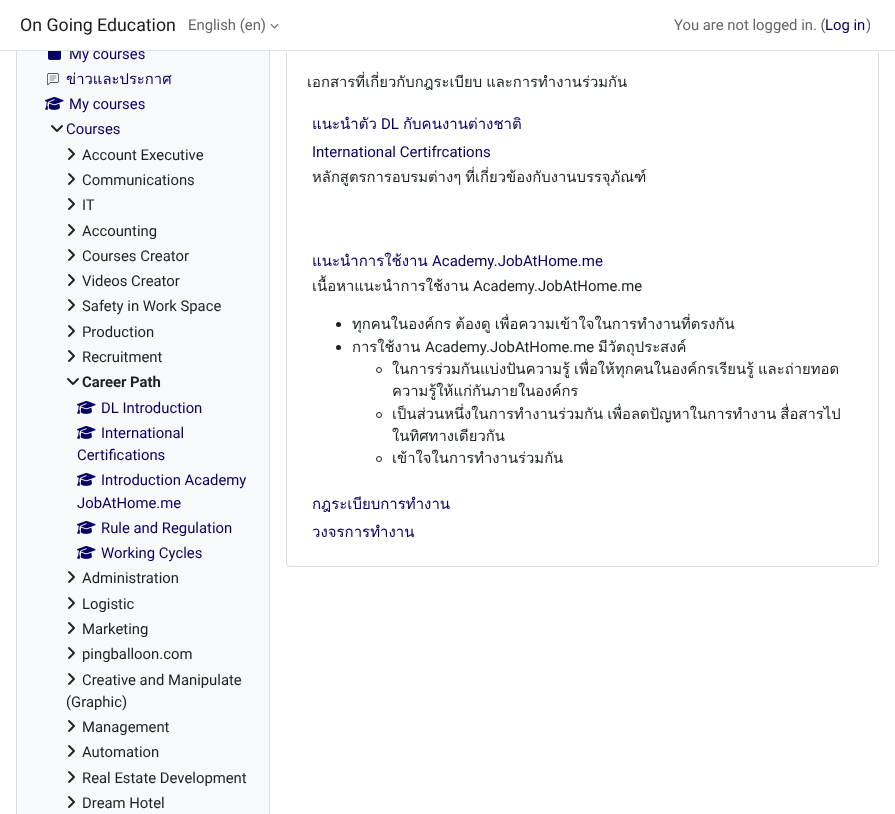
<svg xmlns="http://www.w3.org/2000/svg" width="895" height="814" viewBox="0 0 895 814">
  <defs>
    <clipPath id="clip1"><rect x="312" y="275" width="541" height="210"/></clipPath>
  </defs>
  <rect width="100%" height="100%" fill="rgb(255,255,255)"/>
  <rect x="17" y="51" width="252" height="763" fill="rgb(248,249,250)"/>
  <rect x="16.5" y="-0.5" width="253" height="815" fill="none" stroke="rgb(217,218,219)"/>
  <text x="69" y="59" font-family="Roboto" font-size="14.85" fill="rgb(8,0,100)">My courses</text>
  <rect x="286.5" y="-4.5" width="592" height="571" rx="3.5" fill="none" stroke="rgb(223,223,223)"/>
  <rect x="16" y="0" width="863" height="50" fill="rgb(255,255,255)"/>
  <rect x="0" y="50" width="895" height="1" fill="rgb(222,226,230)"/>
  <text x="20" y="31" font-family="Roboto" font-size="17.75" fill="rgb(26,26,26)">On Going Education</text>
  <text x="188" y="30" font-family="Roboto" font-size="14.85" fill="rgb(102,102,102)">English (en)</text>
  <image x="270" y="24" width="9" height="5" href="pic1.png"/>
  <text x="674" y="30" font-family="Roboto" font-size="14.85" fill="rgb(102,102,102)">You are not logged in. (</text>
  <text x="825" y="30" font-family="Roboto" font-size="14.85" fill="rgb(8,0,100)">Log in</text>
  <text x="866" y="30" font-family="Roboto" font-size="14.85" fill="rgb(102,102,102)">)</text>
  <image x="48" y="51" width="13" height="9" href="pic2.png"/>
  <image x="47" y="73" width="12" height="12" href="pic3.png"/>
  <text x="66" y="84" font-family="Loma" font-size="14.85" fill="rgb(8,0,100)">ข่าวและประกาศ</text>
  <image x="45" y="96" width="19" height="14" href="pic4.png"/>
  <text x="69" y="109" font-family="Roboto" font-size="14.85" fill="rgb(8,0,100)">My courses</text>
  <image x="51" y="125" width="12" height="7" href="pic5.png"/>
  <text x="66" y="134" font-family="Roboto" font-size="14.85" fill="rgb(8,0,100)">Courses</text>
  <image x="68" y="148" width="7" height="12" href="pic6.png"/>
  <text x="82" y="160" font-family="Roboto" font-size="14.85" fill="rgb(29,33,37)">Account Executive</text>
  <image x="68" y="173" width="7" height="12" href="pic6.png"/>
  <text x="82" y="185" font-family="Roboto" font-size="14.85" fill="rgb(29,33,37)">Communications</text>
  <image x="68" y="198" width="7" height="12" href="pic6.png"/>
  <text x="82" y="210" font-family="Roboto" font-size="14.85" fill="rgb(29,33,37)">IT</text>
  <image x="68" y="224" width="7" height="12" href="pic6.png"/>
  <text x="82" y="236" font-family="Roboto" font-size="14.85" fill="rgb(29,33,37)">Accounting</text>
  <image x="68" y="249" width="7" height="12" href="pic6.png"/>
  <text x="82" y="261" font-family="Roboto" font-size="14.85" fill="rgb(29,33,37)">Courses Creator</text>
  <image x="68" y="274" width="7" height="12" href="pic6.png"/>
  <text x="82" y="286" font-family="Roboto" font-size="14.85" fill="rgb(29,33,37)">Videos Creator</text>
  <image x="68" y="299" width="7" height="12" href="pic6.png"/>
  <text x="82" y="311" font-family="Roboto" font-size="14.85" fill="rgb(29,33,37)">Safety in Work Space</text>
  <image x="68" y="325" width="7" height="12" href="pic6.png"/>
  <text x="82" y="337" font-family="Roboto" font-size="14.85" fill="rgb(29,33,37)">Production</text>
  <image x="68" y="350" width="7" height="12" href="pic6.png"/>
  <text x="82" y="362" font-family="Roboto" font-size="14.85" fill="rgb(29,33,37)">Recruitment</text>
  <image x="67" y="378" width="12" height="7" href="pic5.png"/>
  <text x="82" y="387" font-family="Roboto" font-size="14.85" font-weight="bold" fill="rgb(29,33,37)">Career Path</text>
  <image x="77" y="400" width="19" height="14" href="pic4.png"/>
  <text x="101" y="413" font-family="Roboto" font-size="14.85" fill="rgb(8,0,100)">DL Introduction</text>
  <image x="77" y="425" width="19" height="14" href="pic4.png"/>
  <g font-family="Roboto" font-size="14.85" fill="rgb(8,0,100)">
    <text x="101" y="438">International</text>
    <text x="77" y="460">Certifications</text>
  </g>
  <image x="77" y="472" width="19" height="14" href="pic4.png"/>
  <g font-family="Roboto" font-size="14.85" fill="rgb(8,0,100)">
    <text x="101" y="485">Introduction Academy</text>
    <text x="77" y="508">JobAtHome.me</text>
  </g>
  <image x="77" y="520" width="19" height="14" href="pic4.png"/>
  <text x="101" y="533" font-family="Roboto" font-size="14.85" fill="rgb(8,0,100)">Rule and Regulation</text>
  <image x="77" y="545" width="19" height="14" href="pic4.png"/>
  <text x="101" y="558" font-family="Roboto" font-size="14.85" fill="rgb(8,0,100)">Working Cycles</text>
  <image x="68" y="571" width="7" height="12" href="pic6.png"/>
  <text x="82" y="583" font-family="Roboto" font-size="14.85" fill="rgb(29,33,37)">Administration</text>
  <image x="68" y="597" width="7" height="12" href="pic6.png"/>
  <text x="82" y="609" font-family="Roboto" font-size="14.85" fill="rgb(29,33,37)">Logistic</text>
  <image x="68" y="622" width="7" height="12" href="pic6.png"/>
  <text x="82" y="634" font-family="Roboto" font-size="14.85" fill="rgb(29,33,37)">Marketing</text>
  <image x="68" y="647" width="7" height="12" href="pic6.png"/>
  <text x="82" y="659" font-family="Roboto" font-size="14.85" fill="rgb(29,33,37)">pingballoon.com</text>
  <image x="68" y="673" width="7" height="12" href="pic6.png"/>
  <g font-family="Roboto" font-size="14.85" fill="rgb(29,33,37)">
    <text x="82" y="685">Creative and Manipulate</text>
    <text x="66" y="707">(Graphic)</text>
  </g>
  <image x="68" y="720" width="7" height="12" href="pic6.png"/>
  <text x="82" y="732" font-family="Roboto" font-size="14.85" fill="rgb(29,33,37)">Management</text>
  <image x="68" y="745" width="7" height="12" href="pic6.png"/>
  <text x="82" y="757" font-family="Roboto" font-size="14.85" fill="rgb(29,33,37)">Automation</text>
  <image x="68" y="771" width="7" height="12" href="pic6.png"/>
  <text x="82" y="783" font-family="Roboto" font-size="14.85" fill="rgb(29,33,37)">Real Estate Development</text>
  <image x="68" y="796" width="7" height="12" href="pic6.png"/>
  <text x="82" y="808" font-family="Roboto" font-size="14.85" fill="rgb(29,33,37)">Dream Hotel</text>
  <text x="307" y="87" word-spacing="-1" font-family="Loma" font-size="14.85" fill="rgb(29,33,37)">เอกสารที่เกี่ยวกับกฎระเบียบ และการทำงานร่วมกัน</text>
  <text x="312" y="129" font-family="Loma" font-size="15" fill="rgb(8,0,100)">แนะนำตัว</text>
  <text x="381" y="129" font-family="Roboto" font-size="15" fill="rgb(8,0,100)">DL</text>
  <text x="403" y="129" font-family="Loma" font-size="15" fill="rgb(8,0,100)">กับคนงานต่างชาติ</text>
  <text x="312" y="157" font-family="Roboto" font-size="15" fill="rgb(8,0,100)">International Certifrcations</text>
  <text x="312" y="182" word-spacing="-1" font-family="Loma" font-size="14.85" fill="rgb(29,33,37)">หลักสูตรการอบรมต่างๆ ที่เกี่ยวข้องกับงานบรรจุภัณฑ์</text>
  <text x="312" y="266" font-family="Loma" font-size="15" fill="rgb(8,0,100)">แนะนำการใช้งาน</text>
  <text x="432" y="266" font-family="Roboto" font-size="15" fill="rgb(8,0,100)">Academy.JobAtHome.me</text>
  <g clip-path="url(#clip1)">
    <text x="312" y="291" font-family="Loma" font-size="14.85" fill="rgb(29,33,37)">เนื้อหาแนะนำการใช้งาน</text>
  </g>
  <text x="473" y="291" font-family="Roboto" font-size="14.85" fill="rgb(29,33,37)">Academy.JobAtHome.me</text>
  <circle cx="338.5" cy="324.5" r="2.5" fill="rgb(29,33,37)"/>
  <text x="352" y="329" word-spacing="-1" font-family="Loma" font-size="14.85" fill="rgb(29,33,37)">ทุกคนในองค์กร ต้องดู เพื่อความเข้าใจในการทำงานที่ตรงกัน</text>
  <circle cx="338.5" cy="347.5" r="2.5" fill="rgb(29,33,37)"/>
  <text x="352" y="352" font-family="Loma" font-size="14.85" fill="rgb(29,33,37)">การใช้งาน</text>
  <text x="425" y="352" font-family="Roboto" font-size="14.85" fill="rgb(29,33,37)">Academy.JobAtHome.me</text>
  <text x="598" y="352" font-family="Loma" font-size="14.85" fill="rgb(29,33,37)">มีวัตถุประสงค์</text>
  <circle cx="379" cy="370" r="2.5" fill="none" stroke="rgb(29,33,37)"/>
  <g font-family="Loma" font-size="14.85" fill="rgb(29,33,37)">
    <text>
      <tspan x="392" y="374" word-spacing="-1">ในการร่วมกันแบ่งปันความรู้ เพื่อให้ทุกคนในองค์กรเรียนรู้ และถ่ายทอด</tspan>
      <tspan x="392" y="396">ความรู้ให้แก่กันภายในองค์กร</tspan>
    </text>
  </g>
  <circle cx="379" cy="415" r="2.5" fill="none" stroke="rgb(29,33,37)"/>
  <g font-family="Loma" font-size="14.85" fill="rgb(29,33,37)">
    <text>
      <tspan x="392" y="419" word-spacing="-1">เป็นส่วนหนึ่งในการทำงานร่วมกัน เพื่อลดปัญหาในการทำงาน สื่อสารไป</tspan>
      <tspan x="392" y="441">ในทิศทางเดียวกัน</tspan>
    </text>
  </g>
  <circle cx="379" cy="459" r="2.5" fill="none" stroke="rgb(29,33,37)"/>
  <text x="392" y="463" font-family="Loma" font-size="14.85" fill="rgb(29,33,37)">เข้าใจในการทำงานร่วมกัน</text>
  <g font-family="Loma" font-size="15" fill="rgb(8,0,100)">
    <text>
      <tspan x="312" y="509">กฎระเบียบการทำงาน</tspan>
      <tspan x="312" y="537">วงจรการทำงาน</tspan>
    </text>
  </g>
</svg>
